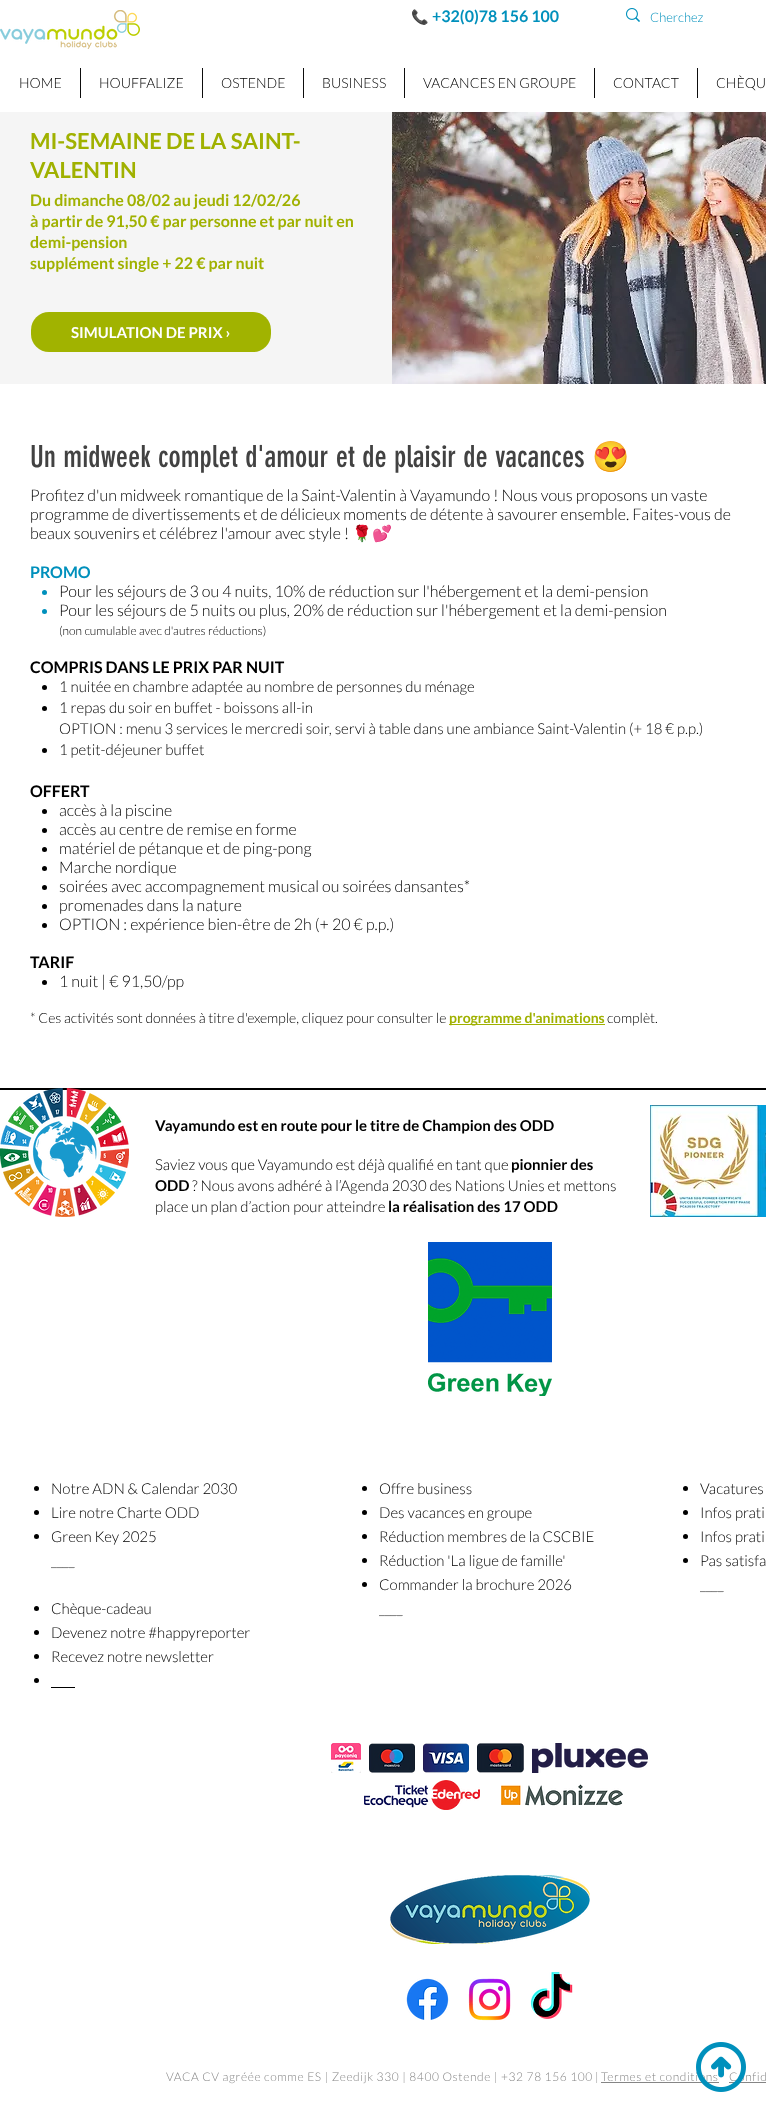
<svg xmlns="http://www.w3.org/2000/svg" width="766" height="2112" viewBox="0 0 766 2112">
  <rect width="100%" height="100%" fill="rgb(255,255,255)"/>
  <image x="0" y="10" width="140" height="39" href="pic1.png"/>
  <text x="411" y="22" font-family="Noto Color Emoji" font-size="14" font-weight="bold" fill="rgb(0,144,188)">📞</text>
  <text x="432" y="22" font-family="Lato" font-size="16" font-weight="bold" fill="rgb(0,144,188)">+32(0)78 156 100</text>
  <image x="626" y="8" width="14" height="14" href="pic2.png"/>
  <text x="650" y="22" font-family="Lato" font-size="13" font-weight="300" fill="rgb(0,144,188)">Cherchez</text>
  <text x="19" y="88" font-family="Lato" font-size="14" font-weight="300" fill="rgb(0,0,0)">HOME</text>
  <rect x="80" y="68" width="1" height="30" fill="rgb(13,13,13)"/>
  <text x="99" y="88" font-family="Lato" font-size="14" font-weight="300" fill="rgb(0,0,0)">HOUFFALIZE</text>
  <rect x="202" y="68" width="1" height="30" fill="rgb(13,13,13)"/>
  <text x="221" y="88" font-family="Lato" font-size="14" font-weight="300" fill="rgb(0,0,0)">OSTENDE</text>
  <rect x="303" y="68" width="1" height="30" fill="rgb(13,13,13)"/>
  <text x="322" y="88" font-family="Lato" font-size="14" font-weight="300" fill="rgb(0,0,0)">BUSINESS</text>
  <rect x="404" y="68" width="1" height="30" fill="rgb(13,13,13)"/>
  <text x="423" y="88" font-family="Lato" font-size="14" font-weight="300" fill="rgb(0,0,0)">VACANCES EN GROUPE</text>
  <rect x="594" y="68" width="1" height="30" fill="rgb(13,13,13)"/>
  <text x="613" y="88" font-family="Lato" font-size="14" font-weight="300" fill="rgb(0,0,0)">CONTACT</text>
  <rect x="697" y="68" width="1" height="30" fill="rgb(13,13,13)"/>
  <text x="716" y="88" font-family="Lato" font-size="14" font-weight="300" fill="rgb(0,0,0)">CHÈQU</text>
  <rect x="0" y="112" width="392" height="272" fill="rgb(245,245,245)"/>
  <g font-family="Lato" font-size="22" font-weight="bold" fill="rgb(160,177,0)">
    <text>
      <tspan x="30" y="149">MI-SEMAINE DE LA SAINT-</tspan>
      <tspan x="30" y="178">VALENTIN</tspan>
    </text>
  </g>
  <g font-family="Lato" font-size="16" font-weight="bold" fill="rgb(160,177,0)">
    <text>
      <tspan x="30" y="206">Du dimanche 08/02 au jeudi 12/02/26</tspan>
      <tspan x="30" y="227">à partir de 91,50 € par personne et par nuit en</tspan>
      <tspan x="30" y="248">demi-pension</tspan>
      <tspan x="30" y="269">supplément single + 22 € par nuit</tspan>
    </text>
  </g>
  <rect x="31" y="312" width="240" height="40" rx="18" fill="rgb(161,179,0)"/>
  <text x="71" y="338" font-family="Lato" font-size="15" font-weight="bold" fill="rgb(255,255,255)">SIMULATION DE PRIX ›</text>
  <image x="392" y="112" width="374" height="272" href="pic3.png"/>
  <text x="30" y="467" font-family="'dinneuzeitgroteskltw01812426'" font-size="30" fill="rgb(66,66,66)">Un midweek complet d'amour et de plaisir de vacances</text>
  <text x="592" y="467" font-family="Noto Color Emoji" font-size="30" fill="rgb(66,66,66)">😍</text>
  <g font-family="Lato" font-size="16" font-weight="300" fill="rgb(0,0,0)">
    <text>
      <tspan x="30" y="501">Profitez d'un midweek romantique de la Saint-Valentin à Vayamundo ! Nous vous proposons un vaste</tspan>
      <tspan x="30" y="520">programme de divertissements et de délicieux moments de détente à savourer ensemble. Faites-vous de</tspan>
      <tspan x="30" y="539">beaux souvenirs et célébrez l'amour avec style !</tspan>
    </text>
  </g>
  <text x="352" y="539" font-family="Noto Color Emoji" font-size="16" fill="rgb(0,0,0)">🌹💕</text>
  <text x="30" y="578" font-family="Lato" font-size="16" font-weight="bold" fill="rgb(0,144,188)">PROMO</text>
  <circle cx="44.5" cy="592.5" r="2.5" fill="rgb(0,144,188)"/>
  <text x="59" y="597" font-family="Lato" font-size="16" font-weight="300" fill="rgb(0,0,0)">Pour les séjours de 3 ou 4 nuits, 10% de réduction sur l'hébergement et la demi-pension</text>
  <circle cx="44.5" cy="611.5" r="2.5" fill="rgb(0,144,188)"/>
  <text x="59" y="616" font-family="Lato" font-size="16" font-weight="300" fill="rgb(0,0,0)">Pour les séjours de 5 nuits ou plus, 20% de réduction sur l'hébergement et la demi-pension</text>
  <text x="59" y="635" font-family="Lato" font-size="12" font-weight="300" fill="rgb(0,0,0)">(non cumulable avec d'autres réductions)</text>
  <text x="30" y="673" font-family="Lato" font-size="16" font-weight="bold" fill="rgb(0,0,0)">COMPRIS DANS LE PRIX PAR NUIT</text>
  <circle cx="44.5" cy="687.5" r="2.5" fill="rgb(0,0,0)"/>
  <text x="59" y="692" font-family="Lato" font-size="15" font-weight="300" fill="rgb(0,0,0)">1 nuitée en chambre adaptée au nombre de personnes du ménage</text>
  <circle cx="44.5" cy="708.5" r="2.5" fill="rgb(0,0,0)"/>
  <g font-family="Lato" font-size="15" font-weight="300" fill="rgb(0,0,0)">
    <text>
      <tspan x="59" y="713">1 repas du soir en buffet - boissons all-in</tspan>
      <tspan x="59" y="734">OPTION : menu 3 services le mercredi soir, servi à table dans une ambiance Saint-Valentin (+ 18 € p.p.)</tspan>
    </text>
  </g>
  <circle cx="44.5" cy="750.5" r="2.5" fill="rgb(0,0,0)"/>
  <text x="59" y="755" font-family="Lato" font-size="15" font-weight="300" fill="rgb(0,0,0)">1 petit-déjeuner buffet</text>
  <text x="30" y="797" font-family="Lato" font-size="16" font-weight="bold" fill="rgb(0,0,0)">OFFERT</text>
  <circle cx="44.5" cy="811.5" r="2.5" fill="rgb(0,0,0)"/>
  <text x="59" y="816" font-family="Lato" font-size="16" font-weight="300" fill="rgb(0,0,0)">accès à la piscine</text>
  <circle cx="44.5" cy="830.5" r="2.5" fill="rgb(0,0,0)"/>
  <text x="59" y="835" font-family="Lato" font-size="16" font-weight="300" fill="rgb(0,0,0)">accès au centre de remise en forme</text>
  <circle cx="44.5" cy="849.5" r="2.5" fill="rgb(0,0,0)"/>
  <text x="59" y="854" font-family="Lato" font-size="16" font-weight="300" fill="rgb(0,0,0)">matériel de pétanque et de ping-pong</text>
  <circle cx="44.5" cy="868.5" r="2.5" fill="rgb(0,0,0)"/>
  <text x="59" y="873" font-family="Lato" font-size="16" font-weight="300" fill="rgb(0,0,0)">Marche nordique</text>
  <circle cx="44.5" cy="887.5" r="2.5" fill="rgb(0,0,0)"/>
  <text x="59" y="892" font-family="Lato" font-size="16" font-weight="300" fill="rgb(0,0,0)">soirées avec accompagnement musical ou soirées dansantes*</text>
  <circle cx="44.5" cy="906.5" r="2.5" fill="rgb(0,0,0)"/>
  <text x="59" y="911" font-family="Lato" font-size="16" font-weight="300" fill="rgb(0,0,0)">promenades dans la nature</text>
  <circle cx="44.5" cy="925.5" r="2.5" fill="rgb(0,0,0)"/>
  <text x="59" y="930" font-family="Lato" font-size="16" font-weight="300" fill="rgb(0,0,0)">OPTION : expérience bien-être de 2h (+ 20 € p.p.)</text>
  <text x="30" y="968" font-family="Lato" font-size="16" font-weight="bold" fill="rgb(0,0,0)">TARIF</text>
  <circle cx="44.5" cy="982.5" r="2.5" fill="rgb(0,0,0)"/>
  <text x="59" y="987" font-family="Lato" font-size="16" font-weight="300" fill="rgb(0,0,0)">1 nuit | € 91,50/pp</text>
  <text x="30" y="1023" font-family="Lato" font-size="14" font-weight="300" fill="rgb(0,0,0)">* Ces activités sont données à titre d'exemple, cliquez pour consulter le</text>
  <rect x="449" y="1024" width="156" height="1" fill="rgb(160,177,0)"/>
  <text x="449" y="1023" font-family="Lato" font-size="14" font-weight="bold" fill="rgb(160,177,0)">programme d'animations</text>
  <text x="607" y="1023" font-family="Lato" font-size="14" font-weight="300" fill="rgb(0,0,0)">complèt.</text>
  <rect x="0" y="1088" width="766" height="2" fill="rgb(0,0,0)"/>
  <image x="0" y="1088" width="129" height="129" href="pic4.png"/>
  <text x="155" y="1131" font-family="Lato" font-size="15" font-weight="bold" fill="rgb(0,0,0)">Vayamundo est en route pour le titre de Champion des ODD</text>
  <image x="650" y="1105" width="116" height="112" href="pic5.png"/>
  <text x="155" y="1170" font-family="Lato" font-size="15" font-weight="300" fill="rgb(0,0,0)">Saviez vous que Vayamundo est déjà qualifié en tant que</text>
  <g font-family="Lato" font-size="15" font-weight="bold" fill="rgb(0,0,0)">
    <text x="511" y="1170">pionnier des</text>
    <text x="155" y="1191">ODD</text>
  </g>
  <g font-family="Lato" font-size="15" font-weight="300" fill="rgb(0,0,0)">
    <text x="192" y="1191">? Nous avons adhéré à l’Agenda 2030 des Nations Unies et mettons</text>
    <text x="155" y="1212">place un plan d’action pour atteindre</text>
  </g>
  <text x="388" y="1212" font-family="Lato" font-size="15" font-weight="bold" fill="rgb(0,0,0)">la réalisation des 17 ODD</text>
  <image x="428" y="1242" width="124" height="154" href="pic6.png"/>
  <circle cx="36.5" cy="1488.5" r="2.5" fill="rgb(0,0,0)"/>
  <text x="51" y="1494" font-family="Lato" font-size="15" font-weight="300" fill="rgb(0,0,0)">Notre ADN &amp; Calendar 2030</text>
  <circle cx="36.5" cy="1512.5" r="2.5" fill="rgb(0,0,0)"/>
  <text x="51" y="1518" font-family="Lato" font-size="15" font-weight="300" fill="rgb(0,0,0)">Lire notre Charte ODD</text>
  <circle cx="36.5" cy="1536.5" r="2.5" fill="rgb(0,0,0)"/>
  <g font-family="Lato" font-size="15" font-weight="300" fill="rgb(0,0,0)">
    <text>
      <tspan x="51" y="1542">Green Key 2025</tspan>
      <tspan x="51" y="1566">____</tspan>
    </text>
  </g>
  <circle cx="36.5" cy="1608.5" r="2.5" fill="rgb(0,0,0)"/>
  <text x="51" y="1614" font-family="Lato" font-size="15" font-weight="300" fill="rgb(0,0,0)">Chèque-cadeau</text>
  <circle cx="36.5" cy="1632.5" r="2.5" fill="rgb(0,0,0)"/>
  <text x="51" y="1638" font-family="Lato" font-size="15" font-weight="300" fill="rgb(0,0,0)">Devenez notre #happyreporter</text>
  <circle cx="36.5" cy="1656.5" r="2.5" fill="rgb(0,0,0)"/>
  <text x="51" y="1662" font-family="Lato" font-size="15" font-weight="300" fill="rgb(0,0,0)">Recevez notre newsletter</text>
  <circle cx="36.5" cy="1680.5" r="2.5" fill="rgb(0,0,0)"/>
  <rect x="51" y="1687" width="24" height="1" fill="rgb(0,0,0)"/>
  <circle cx="364.5" cy="1488.5" r="2.5" fill="rgb(0,0,0)"/>
  <text x="379" y="1494" font-family="Lato" font-size="15" font-weight="300" fill="rgb(0,0,0)">Offre business</text>
  <circle cx="364.5" cy="1512.5" r="2.5" fill="rgb(0,0,0)"/>
  <text x="379" y="1518" font-family="Lato" font-size="15" font-weight="300" fill="rgb(0,0,0)">Des vacances en groupe</text>
  <circle cx="364.5" cy="1536.5" r="2.5" fill="rgb(0,0,0)"/>
  <text x="379" y="1542" font-family="Lato" font-size="15" font-weight="300" fill="rgb(0,0,0)">Réduction membres de la CSCBIE</text>
  <circle cx="364.5" cy="1560.5" r="2.5" fill="rgb(0,0,0)"/>
  <text x="379" y="1566" font-family="Lato" font-size="15" font-weight="300" fill="rgb(0,0,0)">Réduction 'La ligue de famille'</text>
  <circle cx="364.5" cy="1584.5" r="2.5" fill="rgb(0,0,0)"/>
  <g font-family="Lato" font-size="15" font-weight="300" fill="rgb(0,0,0)">
    <text>
      <tspan x="379" y="1590">Commander la brochure 2026</tspan>
      <tspan x="379" y="1614">____</tspan>
    </text>
  </g>
  <circle cx="685.5" cy="1488.5" r="2.5" fill="rgb(0,0,0)"/>
  <text x="700" y="1494" font-family="Lato" font-size="15" font-weight="300" fill="rgb(0,0,0)">Vacatures</text>
  <circle cx="685.5" cy="1512.5" r="2.5" fill="rgb(0,0,0)"/>
  <text x="700" y="1518" font-family="Lato" font-size="15" font-weight="300" fill="rgb(0,0,0)">Infos prati</text>
  <circle cx="685.5" cy="1536.5" r="2.5" fill="rgb(0,0,0)"/>
  <text x="700" y="1542" font-family="Lato" font-size="15" font-weight="300" fill="rgb(0,0,0)">Infos prati</text>
  <circle cx="685.5" cy="1560.5" r="2.5" fill="rgb(0,0,0)"/>
  <g font-family="Lato" font-size="15" font-weight="300" fill="rgb(0,0,0)">
    <text>
      <tspan x="700" y="1566">Pas satisfa</tspan>
      <tspan x="700" y="1590">____</tspan>
    </text>
  </g>
  <image x="331" y="1743" width="30" height="30" href="pic7.png"/>
  <image x="369" y="1743" width="46" height="30" href="pic8.png"/>
  <image x="423" y="1743" width="46" height="30" href="pic9.png"/>
  <image x="477" y="1743" width="47" height="30" href="pic10.png"/>
  <image x="532" y="1743" width="116" height="30" href="pic11.png"/>
  <image x="364" y="1780" width="116" height="30" href="pic12.png"/>
  <image x="501" y="1784" width="122" height="22" href="pic13.png"/>
  <image x="390" y="1875" width="200" height="69" href="pic14.png"/>
  <image x="406" y="1978" width="43" height="42" href="pic15.png"/>
  <image x="468" y="1978" width="43" height="43" href="pic16.png"/>
  <image x="530" y="1972" width="43" height="47" href="pic17.png"/>
  <g font-family="Lato" font-size="12" font-weight="300" letter-spacing="0.6" fill="rgb(133,133,133)">
    <text x="166" y="2081">VACA CV agréée comme ES | Zeedijk 330 | 8400 Ostende | +32 78 156 100</text>
    <text x="595" y="2081">|</text>
    <text x="601" y="2081">Termes et conditions</text>
  </g>
  <rect x="601" y="2082" width="118" height="1" fill="rgb(133,133,133)"/>
  <text x="729" y="2081" font-family="Lato" font-size="12" font-weight="300" letter-spacing="0.6" fill="rgb(133,133,133)">Confid</text>
  <rect x="729" y="2082" width="37" height="1" fill="rgb(133,133,133)"/>
  <image x="696" y="2042" width="50" height="50" href="pic18.png"/>
</svg>
